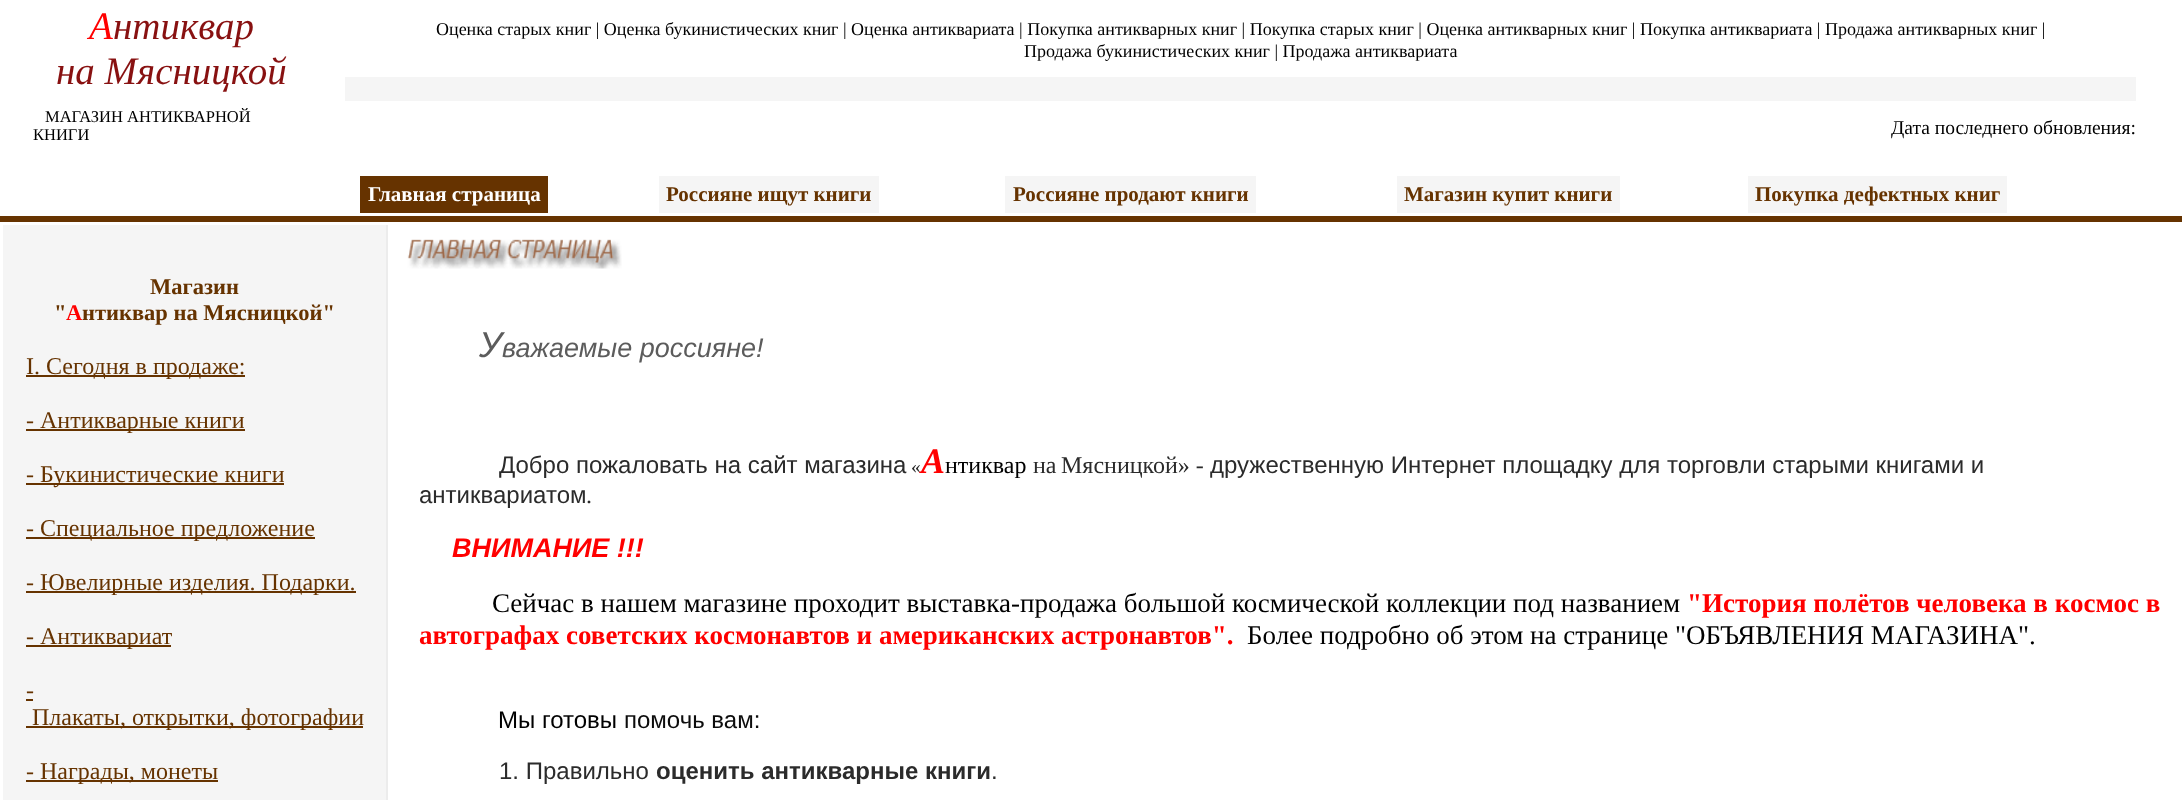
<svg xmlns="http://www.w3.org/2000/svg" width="2182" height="800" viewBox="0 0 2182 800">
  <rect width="100%" height="100%" fill="rgb(255,255,255)"/>
  <text x="89" y="39" font-family="Liberation Serif" font-size="39" font-style="italic" fill="rgb(255,0,0)">А</text>
  <g font-family="Liberation Serif" font-size="39" font-style="italic" fill="rgb(136,17,17)">
    <text x="113" y="39">нтиквар</text>
    <text x="56" y="84">на Мясницкой</text>
  </g>
  <g font-family="Liberation Serif" font-size="16.5" fill="rgb(0,0,0)">
    <text x="45" y="122">МАГАЗИН АНТИКВАРНОЙ</text>
    <text x="33" y="140">КНИГИ</text>
  </g>
  <g font-family="Liberation Serif" font-size="18" fill="rgb(0,0,0)">
    <text x="436" y="35">Оценка старых книг | Оценка букинистических книг | Оценка антиквариата | Покупка антикварных книг | Покупка старых книг | Оценка антикварных книг | Покупка антиквариата | Продажа антикварных книг |</text>
    <text x="1024" y="57">Продажа букинистических книг | Продажа антиквариата</text>
  </g>
  <rect x="345" y="77" width="1791" height="24" fill="rgb(245,245,245)"/>
  <text x="1891" y="134" font-family="Liberation Serif" font-size="19.5" fill="rgb(0,0,0)">Дата последнего обновления:</text>
  <rect x="0" y="216" width="2182" height="6" fill="rgb(102,51,0)"/>
  <rect x="360" y="176" width="188" height="37" fill="rgb(102,51,0)"/>
  <text x="368" y="201" font-family="Liberation Serif" font-size="21" font-weight="bold" fill="rgb(255,255,255)">Главная страница</text>
  <rect x="659" y="176" width="220" height="37" fill="rgb(245,245,245)"/>
  <text x="666" y="201" font-family="Liberation Serif" font-size="21" font-weight="bold" fill="rgb(102,51,0)">Россияне ищут книги</text>
  <rect x="1005" y="176" width="251" height="37" fill="rgb(245,245,245)"/>
  <text x="1013" y="201" font-family="Liberation Serif" font-size="21" font-weight="bold" fill="rgb(102,51,0)">Россияне продают книги</text>
  <rect x="1397" y="176" width="223" height="37" fill="rgb(245,245,245)"/>
  <text x="1404" y="201" font-family="Liberation Serif" font-size="21" font-weight="bold" fill="rgb(102,51,0)">Магазин купит книги</text>
  <rect x="1748" y="176" width="259" height="37" fill="rgb(245,245,245)"/>
  <text x="1755" y="201" font-family="Liberation Serif" font-size="21" font-weight="bold" fill="rgb(102,51,0)">Покупка дефектных книг</text>
  <rect x="3" y="225" width="383" height="575" fill="rgb(245,245,245)"/>
  <rect x="386" y="225" width="2" height="575" fill="rgb(236,236,236)"/>
  <g font-family="Liberation Serif" font-size="22.5" font-weight="bold" fill="rgb(102,51,0)">
    <text x="150" y="294">Магазин</text>
    <text x="54" y="320">"</text>
  </g>
  <text x="66" y="320" font-family="Liberation Serif" font-size="22.5" font-weight="bold" fill="rgb(255,0,0)">А</text>
  <text x="82" y="320" font-family="Liberation Serif" font-size="22.5" font-weight="bold" fill="rgb(102,51,0)">нтиквар на Мясницкой"</text>
  <rect x="26" y="375" width="219" height="2" fill="rgb(102,51,0)"/>
  <text x="26" y="374" font-family="Liberation Serif" font-size="24" fill="rgb(102,51,0)">I. Сегодня в продаже:</text>
  <rect x="26" y="429" width="219" height="2" fill="rgb(102,51,0)"/>
  <text x="26" y="428" font-family="Liberation Serif" font-size="24" fill="rgb(102,51,0)">- Антикварные книги</text>
  <rect x="26" y="483" width="258" height="2" fill="rgb(102,51,0)"/>
  <text x="26" y="482" font-family="Liberation Serif" font-size="24" fill="rgb(102,51,0)">- Букинистические книги</text>
  <rect x="26" y="537" width="289" height="2" fill="rgb(102,51,0)"/>
  <text x="26" y="536" font-family="Liberation Serif" font-size="24" fill="rgb(102,51,0)">- Специальное предложение</text>
  <rect x="26" y="591" width="330" height="2" fill="rgb(102,51,0)"/>
  <text x="26" y="590" font-family="Liberation Serif" font-size="24" fill="rgb(102,51,0)">- Ювелирные изделия. Подарки.</text>
  <rect x="26" y="645" width="145" height="2" fill="rgb(102,51,0)"/>
  <g font-family="Liberation Serif" font-size="24" fill="rgb(102,51,0)">
    <text x="26" y="644">- Антиквариат</text>
    <text x="26" y="698">-</text>
  </g>
  <rect x="26" y="699" width="7" height="2" fill="rgb(102,51,0)"/>
  <rect x="26" y="726" width="337" height="2" fill="rgb(102,51,0)"/>
  <text x="32" y="725" font-family="Liberation Serif" font-size="24" fill="rgb(102,51,0)">Плакаты, открытки, фотографии</text>
  <rect x="26" y="780" width="192" height="2" fill="rgb(102,51,0)"/>
  <text x="26" y="779" font-family="Liberation Serif" font-size="24" fill="rgb(102,51,0)">- Награды, монеты</text>
  <image x="407" y="239" width="215" height="30" href="pic1.png"/>
  <text x="479" y="357" font-family="Liberation Sans" font-size="36" font-style="italic" fill="rgb(92,92,92)">У</text>
  <text x="502" y="357" font-family="Liberation Sans" font-size="27" font-style="italic" fill="rgb(92,92,92)">важаемые россияне!</text>
  <text x="499" y="473" font-family="Liberation Sans" font-size="24" fill="rgb(43,43,43)">Добро пожаловать на сайт магазина</text>
  <text x="911" y="473" font-family="Liberation Serif" font-size="19.5" fill="rgb(43,43,43)">«</text>
  <text x="921" y="473" font-family="Liberation Serif" font-size="36" font-weight="bold" font-style="italic" fill="rgb(255,0,0)">А</text>
  <text x="945" y="473" font-family="Liberation Serif" font-size="24" fill="rgb(0,0,0)">нтиквар</text>
  <g font-family="Liberation Serif" font-size="24" fill="rgb(43,43,43)">
    <text x="1033" y="473">на</text>
    <text x="1061" y="473">Мясницкой» -</text>
  </g>
  <g font-family="Liberation Sans" font-size="24" fill="rgb(43,43,43)">
    <text x="1210" y="473">дружественную Интернет площадку для торговли старыми книгами и</text>
    <text x="419" y="503">антиквариатом</text>
  </g>
  <text x="586" y="503" font-family="Liberation Serif" font-size="24" fill="rgb(43,43,43)">.</text>
  <text x="452" y="557" font-family="Liberation Sans" font-size="27" font-weight="bold" font-style="italic" fill="rgb(255,0,0)">ВНИМАНИЕ !!!</text>
  <text x="492" y="612" font-family="Liberation Serif" font-size="27" fill="rgb(0,0,0)">Сейчас в нашем магазине проходит выставка-продажа большой космической коллекции под названием</text>
  <g font-family="Liberation Serif" font-size="27" font-weight="bold" fill="rgb(255,0,0)">
    <text x="1687" y="612">"История полётов человека в космос в</text>
    <text x="419" y="644">автографах советских космонавтов и американских астронавтов".</text>
  </g>
  <text x="1247" y="644" font-family="Liberation Serif" font-size="27" fill="rgb(0,0,0)">Более подробно об этом на странице "ОБЪЯВЛЕНИЯ МАГАЗИНА".</text>
  <text x="498" y="728" font-family="Liberation Sans" font-size="24" fill="rgb(0,0,0)">Мы готовы</text>
  <text x="624" y="728" font-family="Liberation Sans" font-size="24" fill="rgb(12,12,12)">помочь вам:</text>
  <text x="499" y="779" font-family="Liberation Sans" font-size="24" fill="rgb(43,43,43)">1. Правильно</text>
  <text x="656" y="779" font-family="Liberation Sans" font-size="24" font-weight="bold" fill="rgb(43,43,43)">оценить антикварные книги</text>
  <text x="991" y="779" font-family="Liberation Sans" font-size="24" fill="rgb(43,43,43)">.</text>
</svg>
